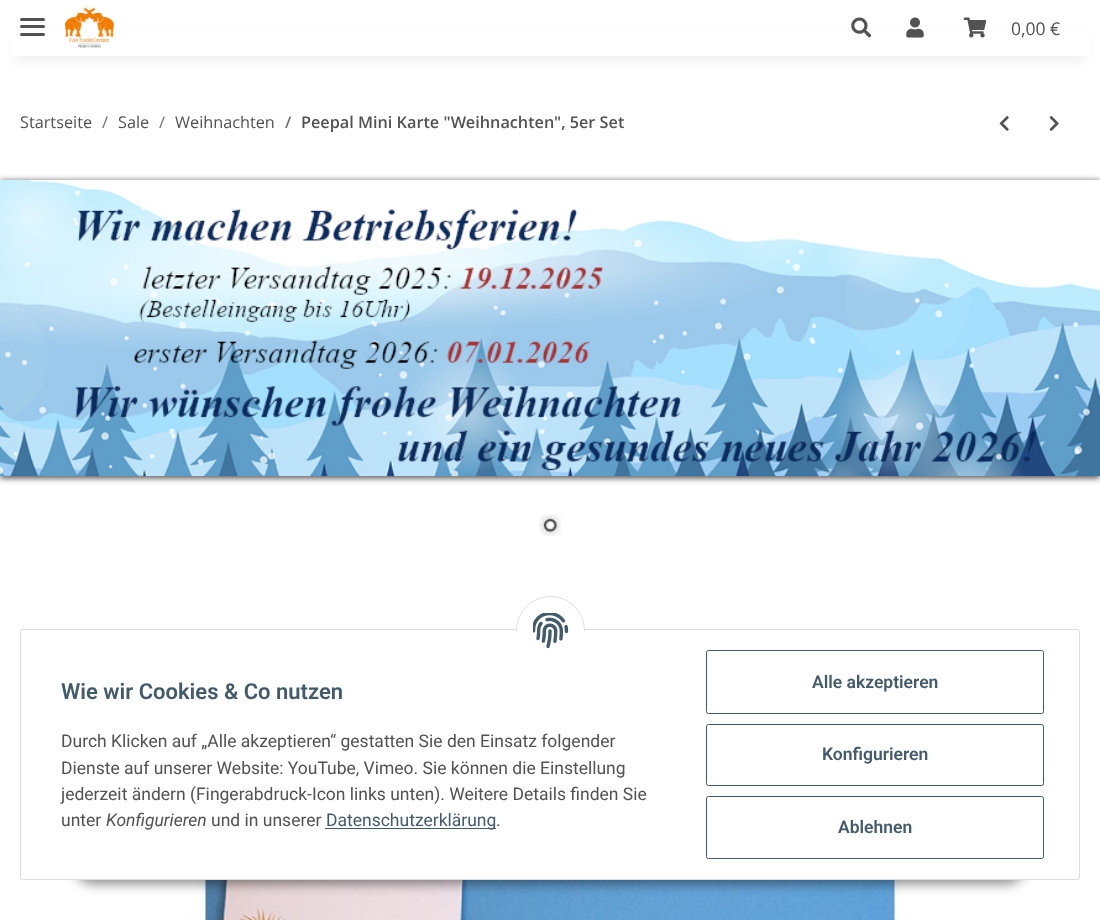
<svg xmlns="http://www.w3.org/2000/svg" width="1100" height="920" viewBox="0 0 1100 920">
  <rect width="100%" height="100%" fill="rgb(255,255,255)"/>
  <rect x="15" y="35" width="1070" height="26" fill="rgba(0,0,0,0.06)" filter="blur(5.5px)"/>
  <rect x="10" y="30" width="1080" height="26" fill="rgb(255,255,255)"/>
  <rect x="20" y="25" width="25" height="3" rx="1.5" fill="rgb(82,82,82)"/>
  <rect x="20" y="18" width="25" height="3" rx="1.5" fill="rgb(82,82,82)"/>
  <rect x="20" y="33" width="25" height="3" rx="1.5" fill="rgb(82,82,82)"/>
  <image x="65" y="7" width="50" height="41" href="pic1.png"/>
  <image x="851" y="17" width="21" height="21" href="pic2.png"/>
  <image x="906" y="17" width="18" height="21" href="pic3.png"/>
  <image x="963" y="17" width="24" height="21" href="pic4.png"/>
  <text x="1011" y="35" font-family="Open Sans" font-size="17.5" fill="rgb(82,82,82)">0,00 €</text>
  <text x="20" y="128" font-family="Open Sans" font-size="16.25" fill="rgb(82,82,82)">Startseite</text>
  <text x="102" y="128" font-family="Open Sans" font-size="16.25" fill="rgb(112,112,112)">/</text>
  <text x="118" y="128" font-family="Open Sans" font-size="16.25" fill="rgb(82,82,82)">Sale</text>
  <text x="159" y="128" font-family="Open Sans" font-size="16.25" fill="rgb(112,112,112)">/</text>
  <text x="175" y="128" font-family="Open Sans" font-size="16.25" fill="rgb(82,82,82)">Weihnachten</text>
  <text x="285" y="128" font-family="Open Sans" font-size="16.25" font-weight="600" fill="rgb(112,112,112)">/</text>
  <text x="301" y="128" font-family="Open Sans" font-size="16.25" font-weight="600" fill="rgb(82,82,82)">Peepal Mini Karte "Weihnachten", 5er Set</text>
  <image x="999" y="116" width="10" height="15" href="pic5.png"/>
  <image x="1049" y="116" width="10" height="15" href="pic6.png"/>
  <rect x="0" y="181" width="1100" height="297" fill="rgb(74,74,74)" filter="blur(3px)"/>
  <image x="0" y="180" width="1100" height="297" href="pic7.png"/>
  <image x="539" y="514" width="23" height="22" href="pic8.png"/>
  <image x="190" y="880" width="712" height="40" href="pic9.png"/>
  <rect x="74" y="844" width="952" height="40" rx="20" fill="rgba(0,0,0,0.45)" filter="blur(6px)"/>
  <rect x="20.5" y="629.5" width="1059" height="250" rx="2" fill="rgb(255,255,255)" stroke="rgb(221,221,221)"/>
  <circle cx="550.5" cy="630.5" r="34" fill="rgb(255,255,255)" stroke="rgb(221,221,221)"/>
  <rect x="516" y="631" width="69" height="34" fill="rgb(255,255,255)"/>
  <image x="533" y="613" width="36" height="36" href="pic10.png"/>
  <text x="61" y="699" font-family="Roboto" font-size="22" font-weight="600" fill="rgb(67,90,107)">Wie wir Cookies &amp; Co nutzen</text>
  <g font-family="Roboto" font-size="17.5" fill="rgb(82,82,82)">
    <text>
      <tspan x="61" y="747">Durch Klicken auf „Alle akzeptieren“ gestatten Sie den Einsatz folgender</tspan>
      <tspan x="61" y="774">Dienste auf unserer Website: YouTube, Vimeo. Sie können die Einstellung</tspan>
      <tspan x="61" y="800">jederzeit ändern (Fingerabdruck-Icon links unten). Weitere Details finden Sie</tspan>
      <tspan x="61" y="826">unter</tspan>
    </text>
  </g>
  <text x="106" y="826" font-family="Roboto" font-size="17.5" font-style="italic" fill="rgb(82,82,82)">Konfigurieren</text>
  <text x="211" y="826" font-family="Roboto" font-size="17.5" fill="rgb(82,82,82)">und in unserer</text>
  <rect x="325" y="828" width="171" height="1" fill="rgb(67,90,107)"/>
  <text x="326" y="826" font-family="Roboto" font-size="17.5" fill="rgb(67,90,107)">Datenschutzerklärung</text>
  <text x="496" y="826" font-family="Roboto" font-size="17.5" fill="rgb(82,82,82)">.</text>
  <rect x="706.5" y="650.5" width="337" height="63" rx="2" fill="none" stroke="rgb(67,90,107)"/>
  <text x="812" y="688" font-family="Roboto" font-size="17.5" font-weight="600" fill="rgb(67,90,107)">Alle akzeptieren</text>
  <rect x="706.5" y="724.5" width="337" height="61" rx="2" fill="none" stroke="rgb(67,90,107)"/>
  <text x="822" y="760" font-family="Roboto" font-size="17.5" font-weight="600" fill="rgb(67,90,107)">Konfigurieren</text>
  <rect x="706.5" y="796.5" width="337" height="62" rx="2" fill="none" stroke="rgb(67,90,107)"/>
  <text x="838" y="833" font-family="Roboto" font-size="17.5" font-weight="600" fill="rgb(67,90,107)">Ablehnen</text>
</svg>
